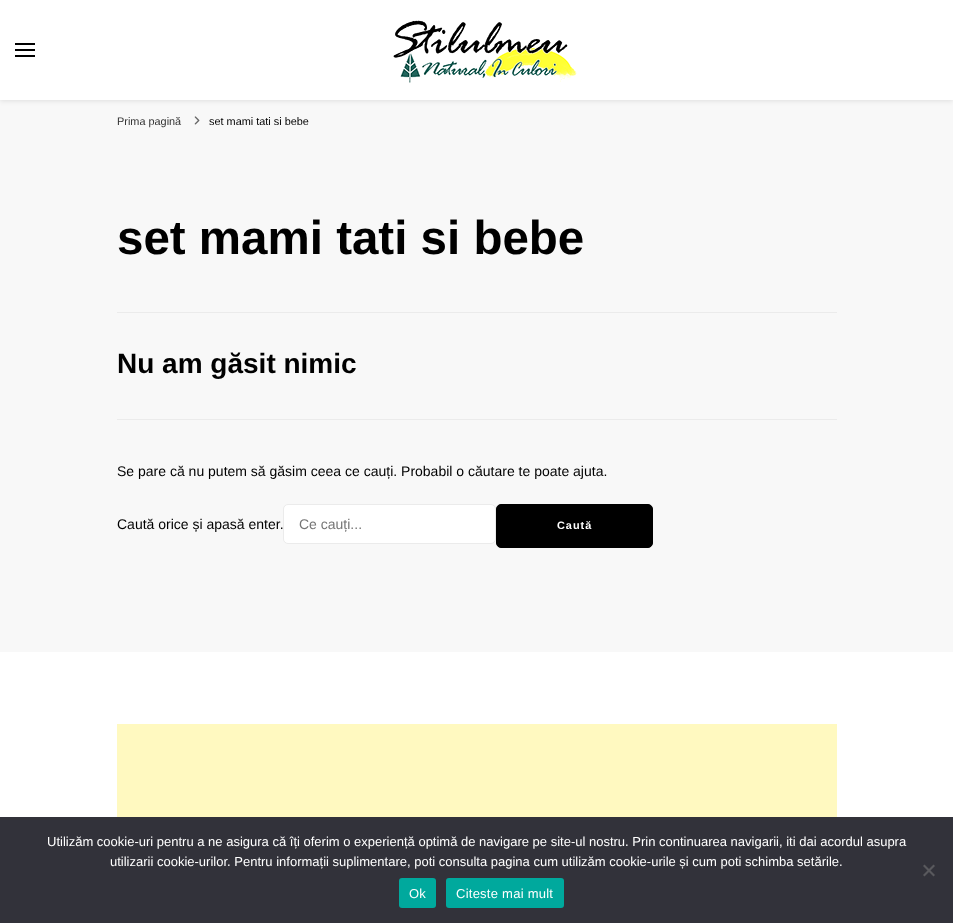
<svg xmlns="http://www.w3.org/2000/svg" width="953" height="923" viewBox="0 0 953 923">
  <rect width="100%" height="100%" fill="rgb(248,248,248)"/>
  <rect x="0" y="1" width="953" height="100" fill="rgba(0,0,0,0.1)" filter="blur(2.5px)"/>
  <rect x="0" y="0" width="953" height="100" fill="rgb(255,255,255)"/>
  <rect x="15" y="43" width="20" height="2" fill="rgb(0,0,0)"/>
  <rect x="15" y="49" width="20" height="2" fill="rgb(0,0,0)"/>
  <rect x="15" y="55" width="20" height="2" fill="rgb(0,0,0)"/>
  <image x="393" y="20" width="184" height="63" href="pic1.png"/>
  <text x="117" y="125" font-family="Liberation Sans" font-size="10.9" fill="rgb(51,51,51)">Prima pagină</text>
  <image x="194" y="116" width="6" height="9" href="pic2.png"/>
  <text x="209" y="125" font-family="Liberation Sans" font-size="10.9" fill="rgb(0,0,0)">set mami tati si bebe</text>
  <rect x="117" y="312" width="720" height="1" fill="rgb(235,235,235)"/>
  <text x="117" y="254" font-family="Liberation Sans" font-size="47.5" font-weight="bold" fill="rgb(0,0,0)">set mami tati si bebe</text>
  <rect x="117" y="419" width="720" height="1" fill="rgb(235,235,235)"/>
  <text x="117" y="373" font-family="Liberation Sans" font-size="28" font-weight="bold" fill="rgb(0,0,0)">Nu am găsit nimic</text>
  <g font-family="Liberation Sans" font-size="14" fill="rgb(0,0,0)">
    <text x="117" y="476">Se pare că nu putem să găsim ceea ce cauți. Probabil o căutare te poate ajuta.</text>
    <text x="117" y="529">Caută orice și apasă enter.</text>
  </g>
  <rect x="283.5" y="504.5" width="212" height="39" rx="4.5" fill="rgb(255,255,255)" stroke="rgb(235,235,235)"/>
  <text x="299" y="529" font-family="Liberation Sans" font-size="14" fill="rgb(117,117,117)">Ce cauți...</text>
  <rect x="496.5" y="504.5" width="156" height="43" rx="4.5" fill="rgb(0,0,0)" stroke="rgb(0,0,0)"/>
  <text x="557" y="529" font-family="Liberation Sans" font-size="10.9" font-weight="bold" letter-spacing="1" fill="rgb(255,255,255)">Caută</text>
  <rect x="0" y="652" width="953" height="165" fill="rgb(255,255,255)"/>
  <rect x="117" y="724" width="720" height="93" fill="rgb(255,249,192)"/>
  <rect x="0" y="817" width="953" height="106" fill="rgb(50,50,58)"/>
  <g font-family="Liberation Sans" font-size="13" fill="rgb(255,255,255)">
    <text x="47" y="846">Utilizăm cookie-uri pentru a ne asigura că îți oferim o experiență optimă de navigare pe site-ul nostru. Prin continuarea navigarii, iti dai acordul asupra</text>
    <text x="110" y="866">utilizarii cookie-urilor. Pentru informații suplimentare, poti consulta pagina cum utilizăm cookie-urile și cum poti schimba setările.</text>
  </g>
  <path d="M933.5 864.5L935 866L924.5 876.5L923 875Z" fill="rgb(89,89,93)"/>
  <path d="M923 866L924.5 864.5L935 875L933.5 876.5Z" fill="rgb(89,89,93)"/>
  <rect x="399" y="878" width="37" height="30" rx="3" fill="rgb(0,169,157)"/>
  <text x="409" y="898" font-family="Liberation Sans" font-size="13" letter-spacing="0.25" fill="rgb(255,255,255)">Ok</text>
  <rect x="446" y="878" width="118" height="30" rx="3" fill="rgb(0,169,157)"/>
  <text x="456" y="898" font-family="Liberation Sans" font-size="13" letter-spacing="0.25" fill="rgb(255,255,255)">Citeste mai mult</text>
</svg>
